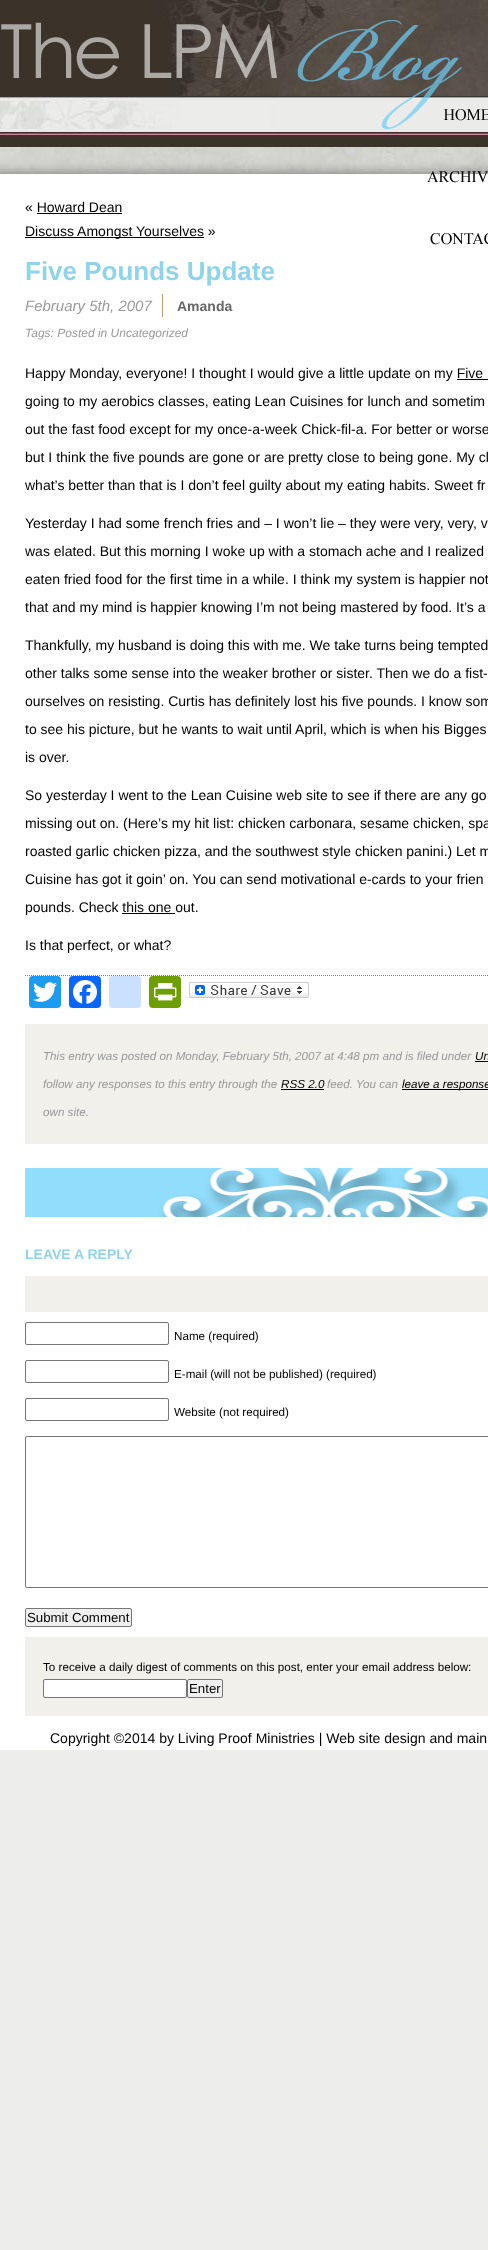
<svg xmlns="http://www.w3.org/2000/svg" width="488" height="2250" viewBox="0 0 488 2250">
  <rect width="100%" height="100%" fill="rgb(255,255,255)"/>
  <image x="0" y="1750" width="488" height="500" href="pic1.png"/>
  <image x="0" y="0" width="488" height="1750" href="pic2.png"/>
  <image x="1" y="20" width="461" height="109" href="pic3.png"/>
  <image x="443" y="109" width="45" height="12" href="pic4.png"/>
  <image x="427" y="171" width="61" height="12" href="pic5.png"/>
  <image x="430" y="233" width="58" height="12" href="pic6.png"/>
  <text x="25" y="212" font-family="Liberation Sans" font-size="14" fill="rgb(0,0,0)">« Howard Dean</text>
  <rect x="37" y="213" width="85" height="1" fill="rgb(0,0,0)"/>
  <rect x="25" y="237" width="179" height="1" fill="rgb(0,0,0)"/>
  <text x="25" y="236" font-family="Liberation Sans" font-size="14" fill="rgb(0,0,0)">Discuss Amongst Yourselves »</text>
  <text x="25" y="280" font-family="Liberation Sans" font-size="26" font-weight="bold" fill="rgb(143,212,234)">Five Pounds Update</text>
  <text x="25" y="311" font-family="Liberation Sans" font-size="15" font-style="italic" fill="rgb(153,153,153)">February 5th, 2007</text>
  <rect x="162" y="294" width="1" height="23" fill="rgb(204,153,102)"/>
  <text x="177" y="311" font-family="Liberation Sans" font-size="14" font-weight="bold" fill="rgb(102,102,102)">Amanda</text>
  <text x="25" y="337" font-family="Liberation Sans" font-size="12" font-style="italic" fill="rgb(153,153,153)">Tags: Posted in Uncategorized</text>
  <image x="25" y="1168" width="463" height="49" href="pic7.png"/>
  <text x="25" y="378" font-family="Liberation Sans" font-size="14" fill="rgb(0,0,0)">Happy Monday, everyone! I thought I would give a little update on my Five</text>
  <rect x="457" y="379" width="31" height="1" fill="rgb(0,0,0)"/>
  <g font-family="Liberation Sans" font-size="14" fill="rgb(0,0,0)">
    <text x="25" y="406">going to my aerobics classes, eating Lean Cuisines for lunch and sometim</text>
    <text x="25" y="434">out the fast food except for my once-a-week Chick-fil-a. For better or worse</text>
    <text x="25" y="462">but I think the five pounds are gone or are pretty close to being gone. My cl</text>
    <text x="25" y="490">what’s better than that is I don’t feel guilty about my eating habits. Sweet fr</text>
    <text x="25" y="528">Yesterday I had some french fries and – I won’t lie – they were very, very, v</text>
    <text x="25" y="556">was elated. But this morning I woke up with a stomach ache and I realized</text>
    <text x="25" y="584">eaten fried food for the first time in a while. I think my system is happier not</text>
    <text x="25" y="612">that and my mind is happier knowing I’m not being mastered by food. It’s a</text>
    <text x="25" y="650">Thankfully, my husband is doing this with me. We take turns being tempted</text>
    <text x="25" y="678">other talks some sense into the weaker brother or sister. Then we do a fist-</text>
    <text x="25" y="706">ourselves on resisting. Curtis has definitely lost his five pounds. I know som</text>
    <text x="25" y="734">to see his picture, but he wants to wait until April, which is when his Bigges</text>
    <text x="25" y="762">is over.</text>
    <text x="25" y="800">So yesterday I went to the Lean Cuisine web site to see if there are any go</text>
    <text x="25" y="828">missing out on. (Here’s my hit list: chicken carbonara, sesame chicken, spa</text>
    <text x="25" y="856">roasted garlic chicken pizza, and the southwest style chicken panini.) Let m</text>
    <text x="25" y="884">Cuisine has got it goin’ on. You can send motivational e-cards to your frien</text>
    <text x="25" y="912">pounds. Check this one out.</text>
  </g>
  <rect x="122" y="913" width="53" height="1" fill="rgb(0,0,0)"/>
  <text x="25" y="950" font-family="Liberation Sans" font-size="14" fill="rgb(0,0,0)">Is that perfect, or what?</text>
  <path d="M25 975.5H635" fill="none" stroke="rgb(128,128,128)" stroke-dasharray="1 1"/>
  <rect x="29" y="976" width="32" height="32" rx="4" fill="rgb(29,155,240)"/>
  <image x="33" y="982" width="24" height="20" href="pic8.png"/>
  <rect x="69" y="976" width="32" height="32" rx="4" fill="rgb(8,102,255)"/>
  <image x="73" y="980" width="24" height="24" href="pic9.png"/>
  <rect x="109" y="976" width="32" height="32" rx="4" fill="rgb(202,224,255)"/>
  <rect x="149" y="976" width="32" height="32" rx="4" fill="rgb(109,159,0)"/>
  <image x="154" y="983" width="23" height="18" href="pic10.png"/>
  <image x="189" y="982" width="120" height="16" href="pic11.png"/>
  <rect x="25" y="1024" width="463" height="120" fill="rgb(242,240,235)"/>
  <text x="43" y="1060" font-family="Liberation Sans" font-size="11.65" font-style="italic" fill="rgb(153,153,153)">This entry was posted on Monday, February 5th, 2007 at 4:48 pm and is filed under</text>
  <text x="475" y="1060" font-family="Liberation Sans" font-size="11.65" font-style="italic" fill="rgb(0,0,0)">Un</text>
  <rect x="475" y="1061" width="13" height="1" fill="rgb(0,0,0)"/>
  <text x="43" y="1088" font-family="Liberation Sans" font-size="11.65" font-style="italic" fill="rgb(153,153,153)">follow any responses to this entry through the</text>
  <text x="281" y="1088" font-family="Liberation Sans" font-size="11.65" font-style="italic" fill="rgb(0,0,0)">RSS 2.0</text>
  <rect x="281" y="1089" width="43" height="1" fill="rgb(0,0,0)"/>
  <text x="327" y="1088" font-family="Liberation Sans" font-size="11.65" font-style="italic" fill="rgb(153,153,153)">feed. You can</text>
  <rect x="402" y="1089" width="86" height="1" fill="rgb(0,0,0)"/>
  <text x="402" y="1088" font-family="Liberation Sans" font-size="11.65" font-style="italic" fill="rgb(0,0,0)">leave a response</text>
  <text x="43" y="1116" font-family="Liberation Sans" font-size="11.65" font-style="italic" fill="rgb(153,153,153)">own site.</text>
  <text x="25" y="1259" font-family="Liberation Sans" font-size="14" font-weight="bold" fill="rgb(143,212,234)">LEAVE A REPLY</text>
  <rect x="25" y="1276" width="463" height="36" fill="rgb(242,240,235)"/>
  <rect x="25.5" y="1322.5" width="143" height="22" rx="1.5" fill="none" stroke="rgb(118,118,118)"/>
  <text x="174" y="1340" font-family="Liberation Sans" font-size="11.65" fill="rgb(0,0,0)">Name (required)</text>
  <rect x="25.5" y="1360.5" width="143" height="22" rx="1.5" fill="none" stroke="rgb(118,118,118)"/>
  <text x="174" y="1378" font-family="Liberation Sans" font-size="11.65" fill="rgb(0,0,0)">E-mail (will not be published) (required)</text>
  <rect x="25.5" y="1398.5" width="143" height="22" rx="1.5" fill="none" stroke="rgb(118,118,118)"/>
  <text x="174" y="1416" font-family="Liberation Sans" font-size="11.65" fill="rgb(0,0,0)">Website (not required)</text>
  <rect x="25.5" y="1436.5" width="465" height="151" rx="1.5" fill="none" stroke="rgb(118,118,118)"/>
  <rect x="25.5" y="1608.5" width="106" height="18" rx="1.5" fill="rgb(239,239,239)" stroke="rgb(118,118,118)"/>
  <text x="27" y="1622" font-family="Liberation Sans" font-size="13.25" fill="rgb(0,0,0)">Submit Comment</text>
  <rect x="25" y="1637" width="463" height="79" fill="rgb(242,240,235)"/>
  <text x="43" y="1671" font-family="Liberation Sans" font-size="11.65" fill="rgb(0,0,0)">To receive a daily digest of comments on this post, enter your email address below:</text>
  <rect x="43.5" y="1679.5" width="143" height="18" rx="1.5" fill="rgb(255,255,255)" stroke="rgb(118,118,118)"/>
  <rect x="187.5" y="1679.5" width="35" height="18" rx="1.5" fill="rgb(239,239,239)" stroke="rgb(118,118,118)"/>
  <text x="189" y="1693" font-family="Liberation Sans" font-size="13.25" fill="rgb(0,0,0)">Enter</text>
  <text x="50" y="1743" font-family="Liberation Sans" font-size="14" fill="rgb(0,0,0)">Copyright ©2014 by Living Proof Ministries | Web site design and main</text>
</svg>
